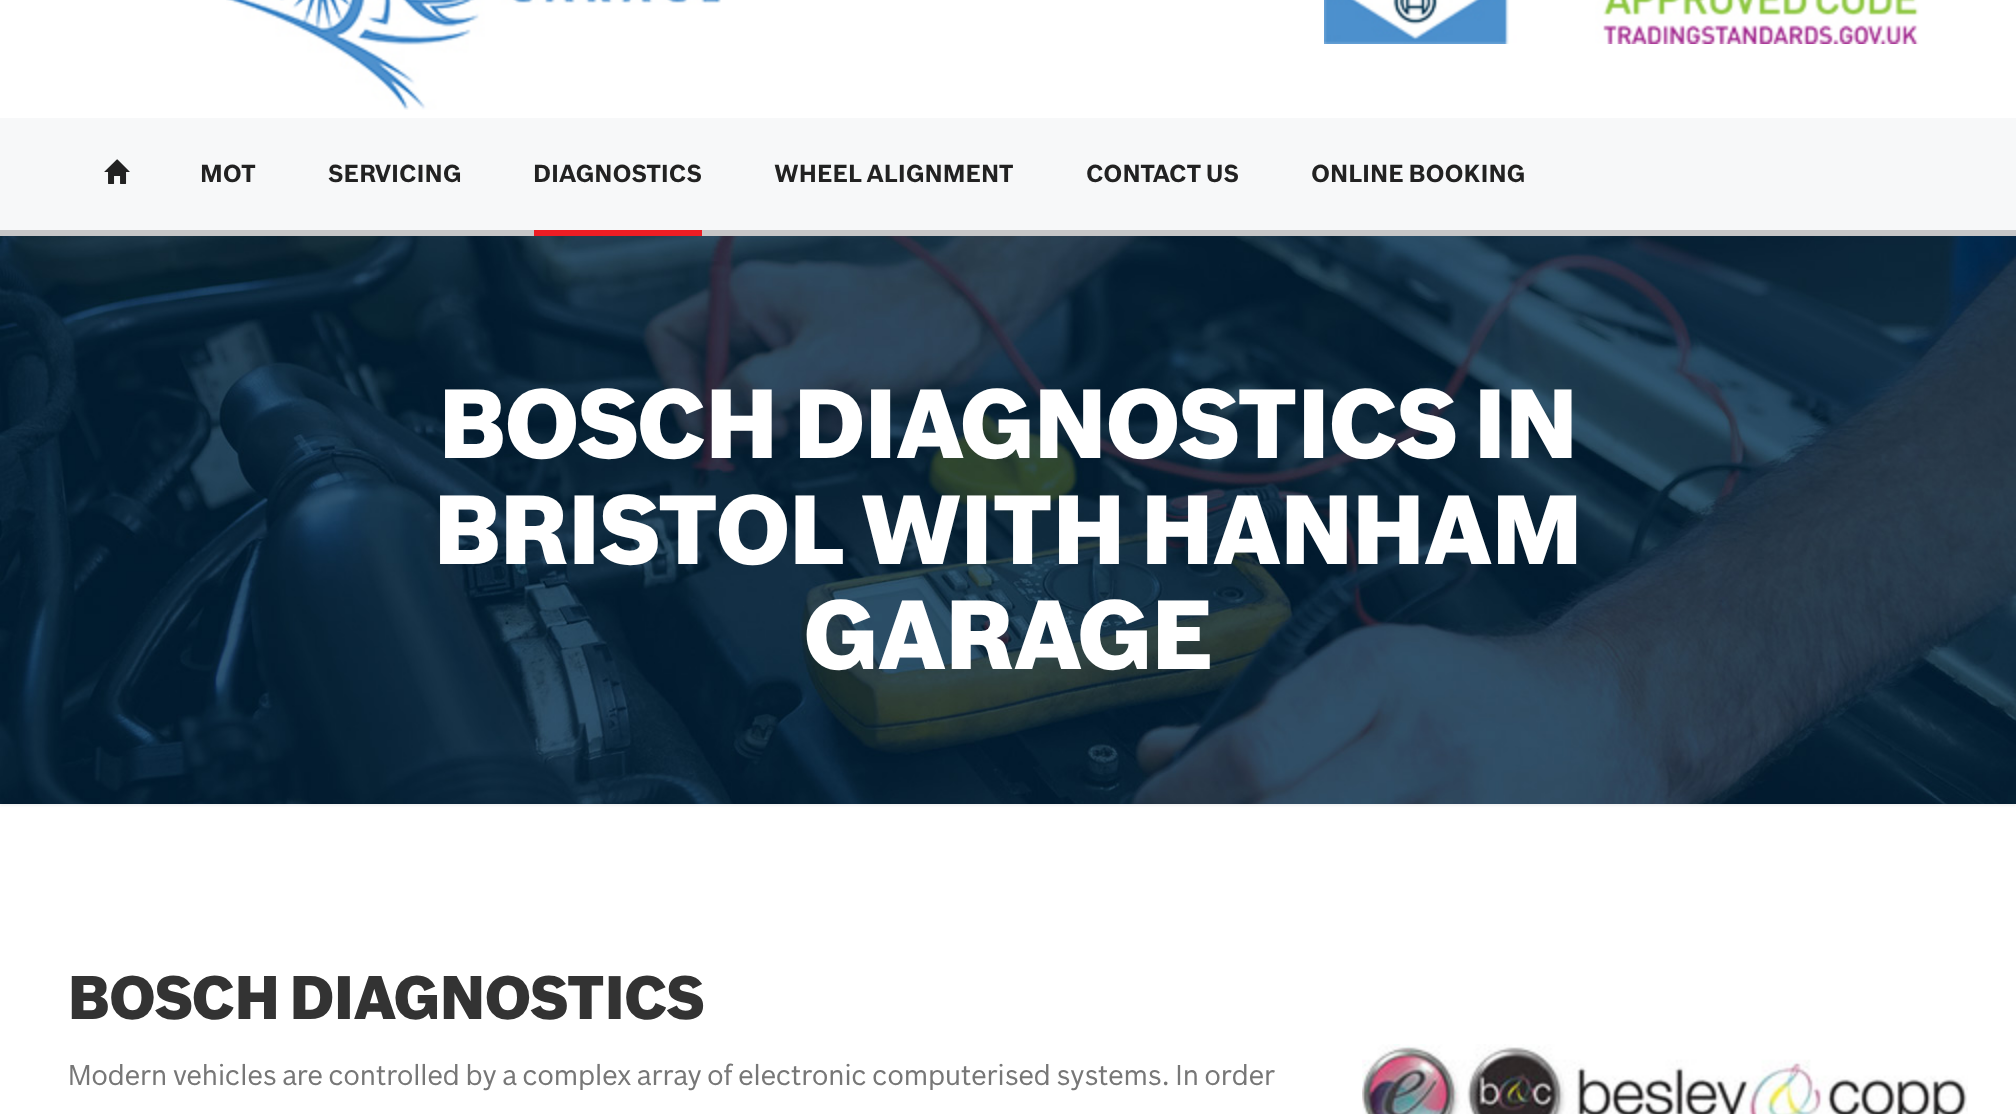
<svg xmlns="http://www.w3.org/2000/svg" width="2016" height="1114" viewBox="0 0 2016 1114">
  <rect width="100%" height="100%" fill="rgb(255,255,255)"/>
  <image x="226" y="0" width="495" height="110" href="pic1.png"/>
  <image x="1324" y="0" width="595" height="44" href="pic2.png"/>
  <rect x="0" y="118" width="2016" height="112" fill="rgb(247,248,249)"/>
  <rect x="0" y="230" width="2016" height="6" fill="rgb(198,198,199)"/>
  <image x="104" y="159" width="26" height="25" href="pic3.png"/>
  <g font-family="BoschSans" font-size="24" font-weight="bold" fill="rgb(34,34,34)">
    <text x="200" y="182">MOT</text>
    <text x="328" y="182">SERVICING</text>
  </g>
  <rect x="534" y="230" width="168" height="6" fill="rgb(237,29,36)"/>
  <g font-family="BoschSans" font-size="24" font-weight="bold" fill="rgb(34,34,34)">
    <text x="533" y="182">DIAGNOSTICS</text>
    <text x="774" y="182">WHEEL ALIGNMENT</text>
    <text x="1086" y="182">CONTACT US</text>
    <text x="1311" y="182">ONLINE BOOKING</text>
  </g>
  <rect x="0" y="238" width="2016" height="568" fill="rgba(0,0,0,0.05)" filter="blur(1px)"/>
  <image x="0" y="236" width="2016" height="568" href="pic4.png"/>
  <g font-family="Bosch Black" font-size="96" font-weight="900" fill="rgb(255,255,255)">
    <text x="439" y="458">BOSCH DIAGNOSTICS IN</text>
    <text x="434" y="564">BRISTOL WITH HANHAM</text>
    <text x="804" y="669">GARAGE</text>
  </g>
  <text x="68" y="1019" font-family="Bosch Black" font-size="60" font-weight="900" fill="rgb(51,51,51)">BOSCH DIAGNOSTICS</text>
  <text x="68" y="1085" font-family="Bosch" font-size="28" fill="rgb(119,119,119)">Modern vehicles are controlled by a complex array of electronic computerised systems. In order</text>
  <image x="1362" y="1044" width="606" height="70" href="pic5.png"/>
</svg>
